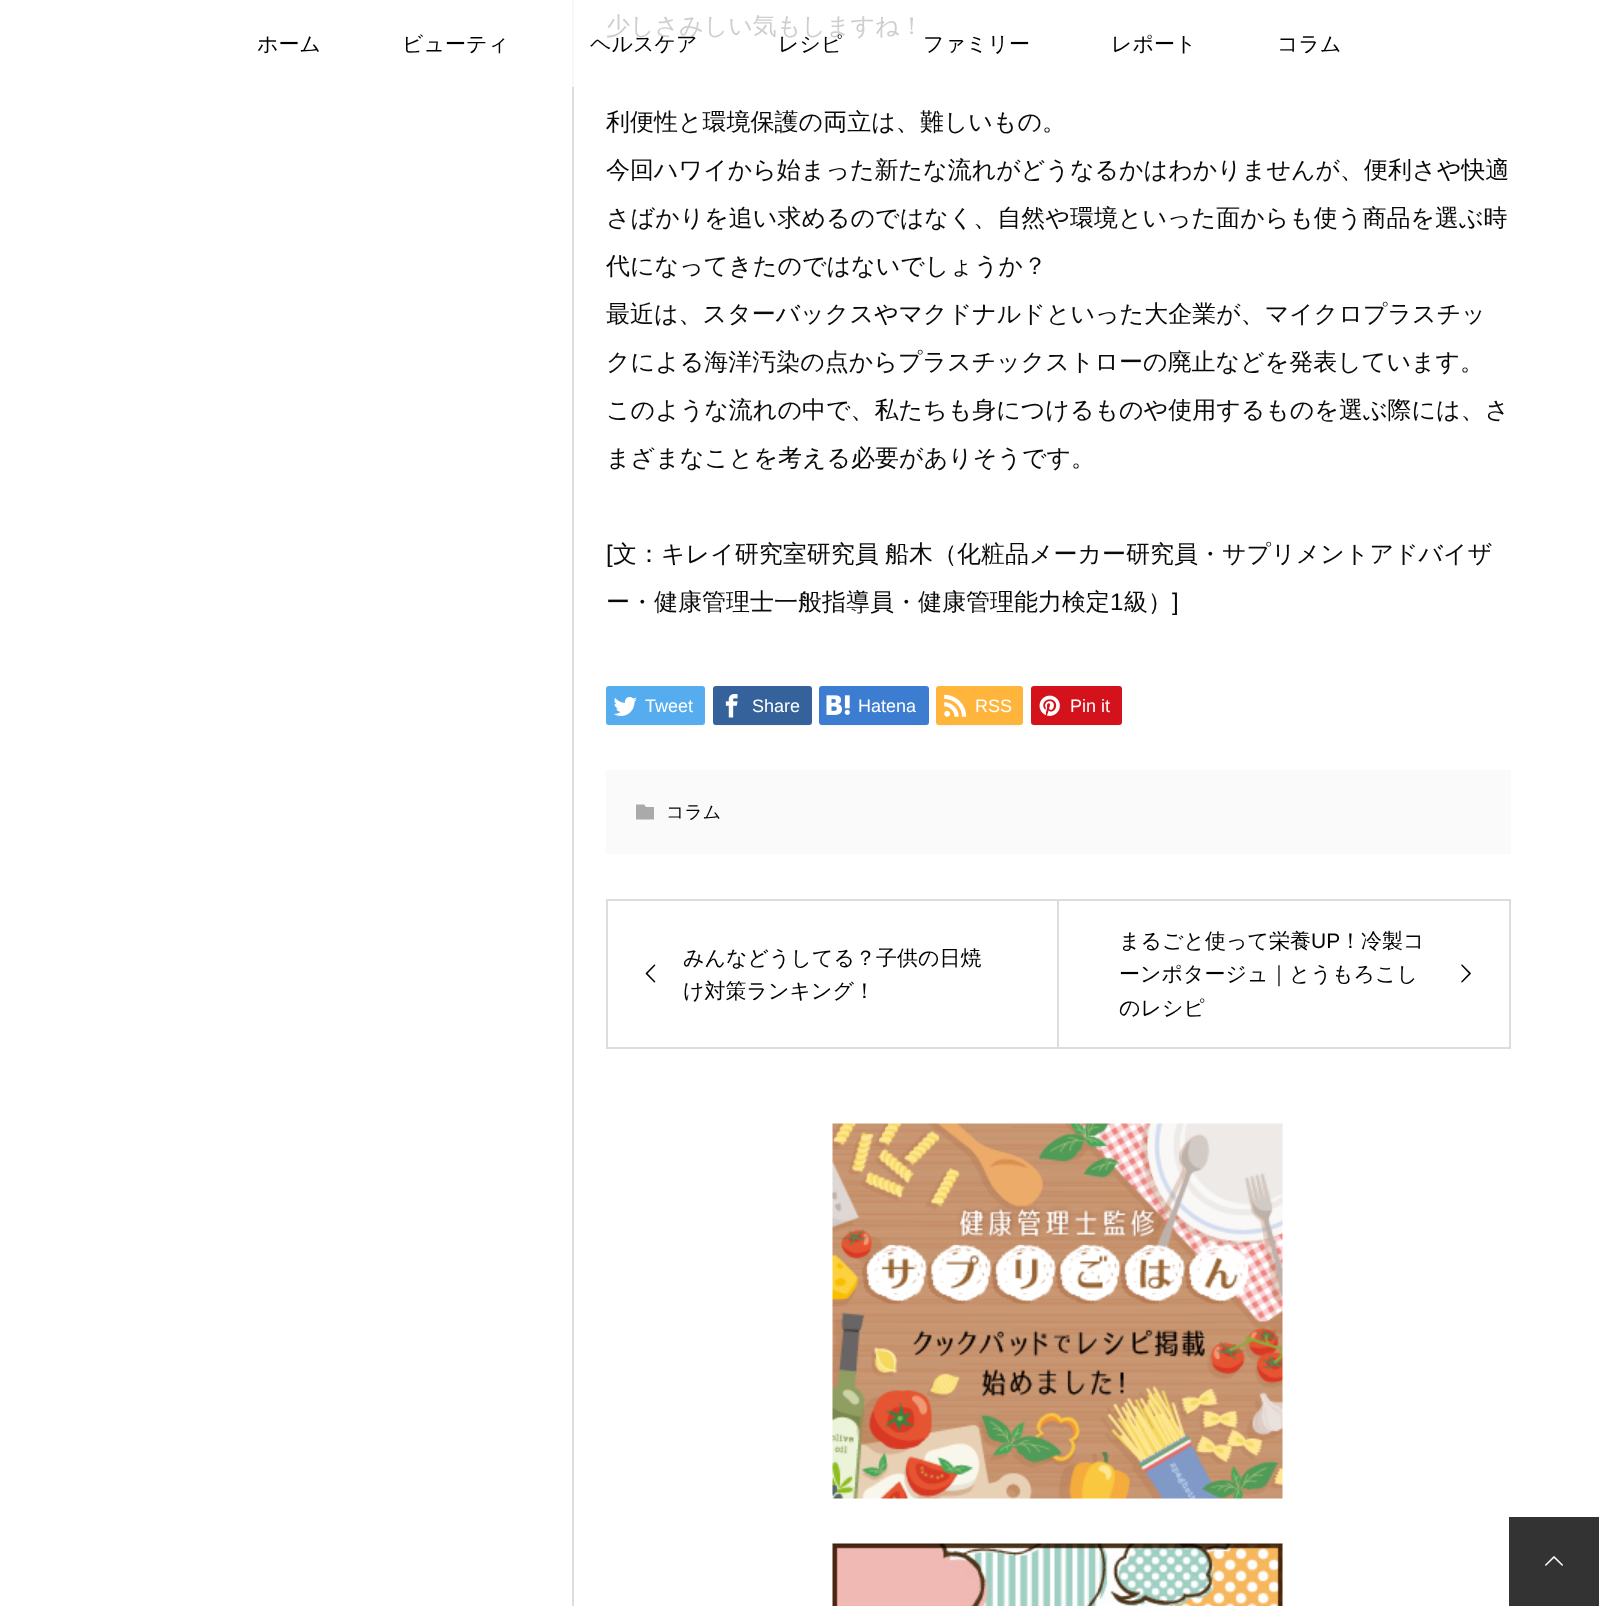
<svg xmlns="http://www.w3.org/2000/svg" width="1599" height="1606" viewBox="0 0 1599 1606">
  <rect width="100%" height="100%" fill="rgb(255,255,255)"/>
  <rect x="572" y="87" width="2" height="1519" fill="rgb(221,221,221)"/>
  <rect x="572" y="0" width="2" height="87" fill="rgb(248,248,248)"/>
  <text x="606" y="34" font-family="WenQuanYi Zen Hei" font-size="24" font-weight="500" fill="rgb(206,206,206)">少しさみしい気もしますね！</text>
  <g font-family="WenQuanYi Zen Hei" font-size="24" font-weight="500" fill="rgb(10,10,10)">
    <text x="606" y="130">利便性と環境保護の両立は、難しいもの。</text>
    <text x="606" y="178">今回ハワイから始まった新たな流れがどうなるかはわかりませんが、便利さや快適</text>
    <text x="606" y="226">さばかりを追い求めるのではなく、自然や環境といった面からも使う商品を選ぶ時</text>
    <text x="606" y="274">代になってきたのではないでしょうか？</text>
    <text x="606" y="322">最近は、スターバックスやマクドナルドといった大企業が、マイクロプラスチッ</text>
    <text x="606" y="370">クによる海洋汚染の点からプラスチックストローの廃止などを発表しています。</text>
    <text x="606" y="418">このような流れの中で、私たちも身につけるものや使用するものを選ぶ際には、さ</text>
    <text x="606" y="466">まざまなことを考える必要がありそうです。</text>
  </g>
  <text x="606" y="562" font-family="Liberation Sans" font-size="24" fill="rgb(10,10,10)">[</text>
  <g font-family="WenQuanYi Zen Hei" font-size="24" font-weight="500" fill="rgb(10,10,10)">
    <text x="613" y="562" word-spacing="-1">文：キレイ研究室研究員 船木（化粧品メーカー研究員・サプリメントアドバイザ</text>
    <text x="606" y="610">ー・健康管理士一般指導員・健康管理能力検定</text>
  </g>
  <text x="1110" y="610" font-family="Liberation Sans" font-size="24" fill="rgb(10,10,10)">1</text>
  <text x="1124" y="610" font-family="WenQuanYi Zen Hei" font-size="24" font-weight="500" fill="rgb(10,10,10)">級）</text>
  <text x="1172" y="610" font-family="Liberation Sans" font-size="24" fill="rgb(10,10,10)">]</text>
  <path d="M606 722V723C606 725 607 726 609 726H702C704 726 705 725 705 723V722C705 723 704 724 702 724H609C607 724 606 723 606 722Z" fill="rgb(247,247,247)"/>
  <rect x="606" y="686" width="99" height="39" rx="3" fill="rgb(85,172,238)"/>
  <image x="613" y="697" width="24" height="19" href="pic1.png"/>
  <text x="645" y="712" font-family="Liberation Sans" font-size="18" fill="rgb(255,255,255)">Tweet</text>
  <path d="M713 723C713 725 714 726 716 726H809C811 726 812 725 812 723V690L811 688L812 716C812 718 813 724 808 724H716C715 724 714 724 713 723Z" fill="rgb(247,247,247)"/>
  <rect x="713" y="686" width="99" height="39" rx="3" fill="rgb(53,98,154)"/>
  <image x="725" y="694" width="13" height="24" href="pic2.png"/>
  <text x="752" y="712" font-family="Liberation Sans" font-size="18" fill="rgb(255,255,255)">Share</text>
  <path d="M819 722C819 723 819 725 821 726H909C934 726 929 730 929 706C929 703 930 691 928 688V716C928 718 930 724 926 724H839C833 724 819 727 819 722Z" fill="rgb(247,247,247)"/>
  <rect x="819" y="686" width="110" height="39" rx="3" fill="rgb(60,125,209)"/>
  <image x="826" y="695" width="24" height="20" href="pic3.png"/>
  <text x="858" y="712" font-family="Liberation Sans" font-size="18" fill="rgb(255,255,255)">Hatena</text>
  <path d="M936 722C936 730 947 726 952 726H1006C1012 726 1023 730 1023 722C1023 723 1022 724 1020 724H939C937 724 936 723 936 722Z" fill="rgb(247,247,247)"/>
  <rect x="936" y="686" width="87" height="39" rx="3" fill="rgb(255,181,60)"/>
  <image x="944" y="694" width="23" height="23" href="pic4.png"/>
  <text x="975" y="712" font-family="Liberation Sans" font-size="18" fill="rgb(255,255,255)">RSS</text>
  <path d="M1031 723C1031 725 1032 726 1034 726H1119C1121 726 1122 725 1122 723V722C1122 723 1121 724 1119 724H1034C1032 724 1032 724 1031 723Z" fill="rgb(247,247,247)"/>
  <rect x="1031" y="686" width="91" height="39" rx="3" fill="rgb(212,18,28)"/>
  <image x="1039" y="695" width="21" height="21" href="pic5.png"/>
  <text x="1070" y="712" font-family="Liberation Sans" font-size="18" fill="rgb(255,255,255)">Pin it</text>
  <rect x="606" y="770" width="905" height="84" fill="rgb(250,250,250)"/>
  <path d="M644 804.5L646 807H654V819.5H636V804.5Z" fill="rgb(170,170,170)"/>
  <text x="666" y="818" font-family="WenQuanYi Zen Hei" font-size="18" font-weight="500" fill="rgb(0,0,0)">コラム</text>
  <rect x="607" y="900" width="451" height="148" fill="none" stroke="rgb(221,221,221)" stroke-width="2"/>
  <image x="645" y="964" width="11" height="19" href="pic6.png"/>
  <g font-family="WenQuanYi Zen Hei" font-size="21" font-weight="500" fill="rgb(0,0,0)">
    <text>
      <tspan x="683" y="965">みんなどうしてる？子供の日焼</tspan>
      <tspan x="683" y="998">け対策ランキング！</tspan>
    </text>
  </g>
  <rect x="1059" y="899" width="452" height="2" fill="rgb(221,221,221)"/>
  <rect x="1509" y="899" width="2" height="150" fill="rgb(221,221,221)"/>
  <rect x="1059" y="1047" width="452" height="2" fill="rgb(221,221,221)"/>
  <text x="1119" y="948" font-family="WenQuanYi Zen Hei" font-size="21" font-weight="500" fill="rgb(0,0,0)">まるごと使って栄養</text>
  <text x="1311" y="948" font-family="Liberation Sans" font-size="21" fill="rgb(0,0,0)">UP</text>
  <g font-family="WenQuanYi Zen Hei" font-size="21" font-weight="500" fill="rgb(0,0,0)">
    <text x="1340" y="948">！冷製コ</text>
    <text>
      <tspan x="1119" y="981">ーンポタージュ｜とうもろこし</tspan>
      <tspan x="1119" y="1015">のレシピ</tspan>
    </text>
  </g>
  <image x="1461" y="964" width="10" height="19" href="pic7.png"/>
  <image x="832" y="1123" width="451" height="376" href="pic8.png"/>
  <image x="832" y="1543" width="451" height="63" href="pic9.png"/>
  <g font-family="WenQuanYi Zen Hei" font-size="21" font-weight="500" fill="rgb(0,0,0)">
    <text x="257" y="51">ホーム</text>
    <text x="402" y="51">ビューティ</text>
    <text x="590" y="51">ヘルスケア</text>
    <text x="778" y="51">レシピ</text>
    <text x="923" y="51">ファミリー</text>
    <text x="1111" y="51">レポート</text>
    <text x="1277" y="51">コラム</text>
  </g>
  <rect x="1509" y="1517" width="90" height="89" fill="rgb(51,51,51)"/>
  <image x="1545" y="1556" width="18" height="10" href="pic10.png"/>
</svg>
